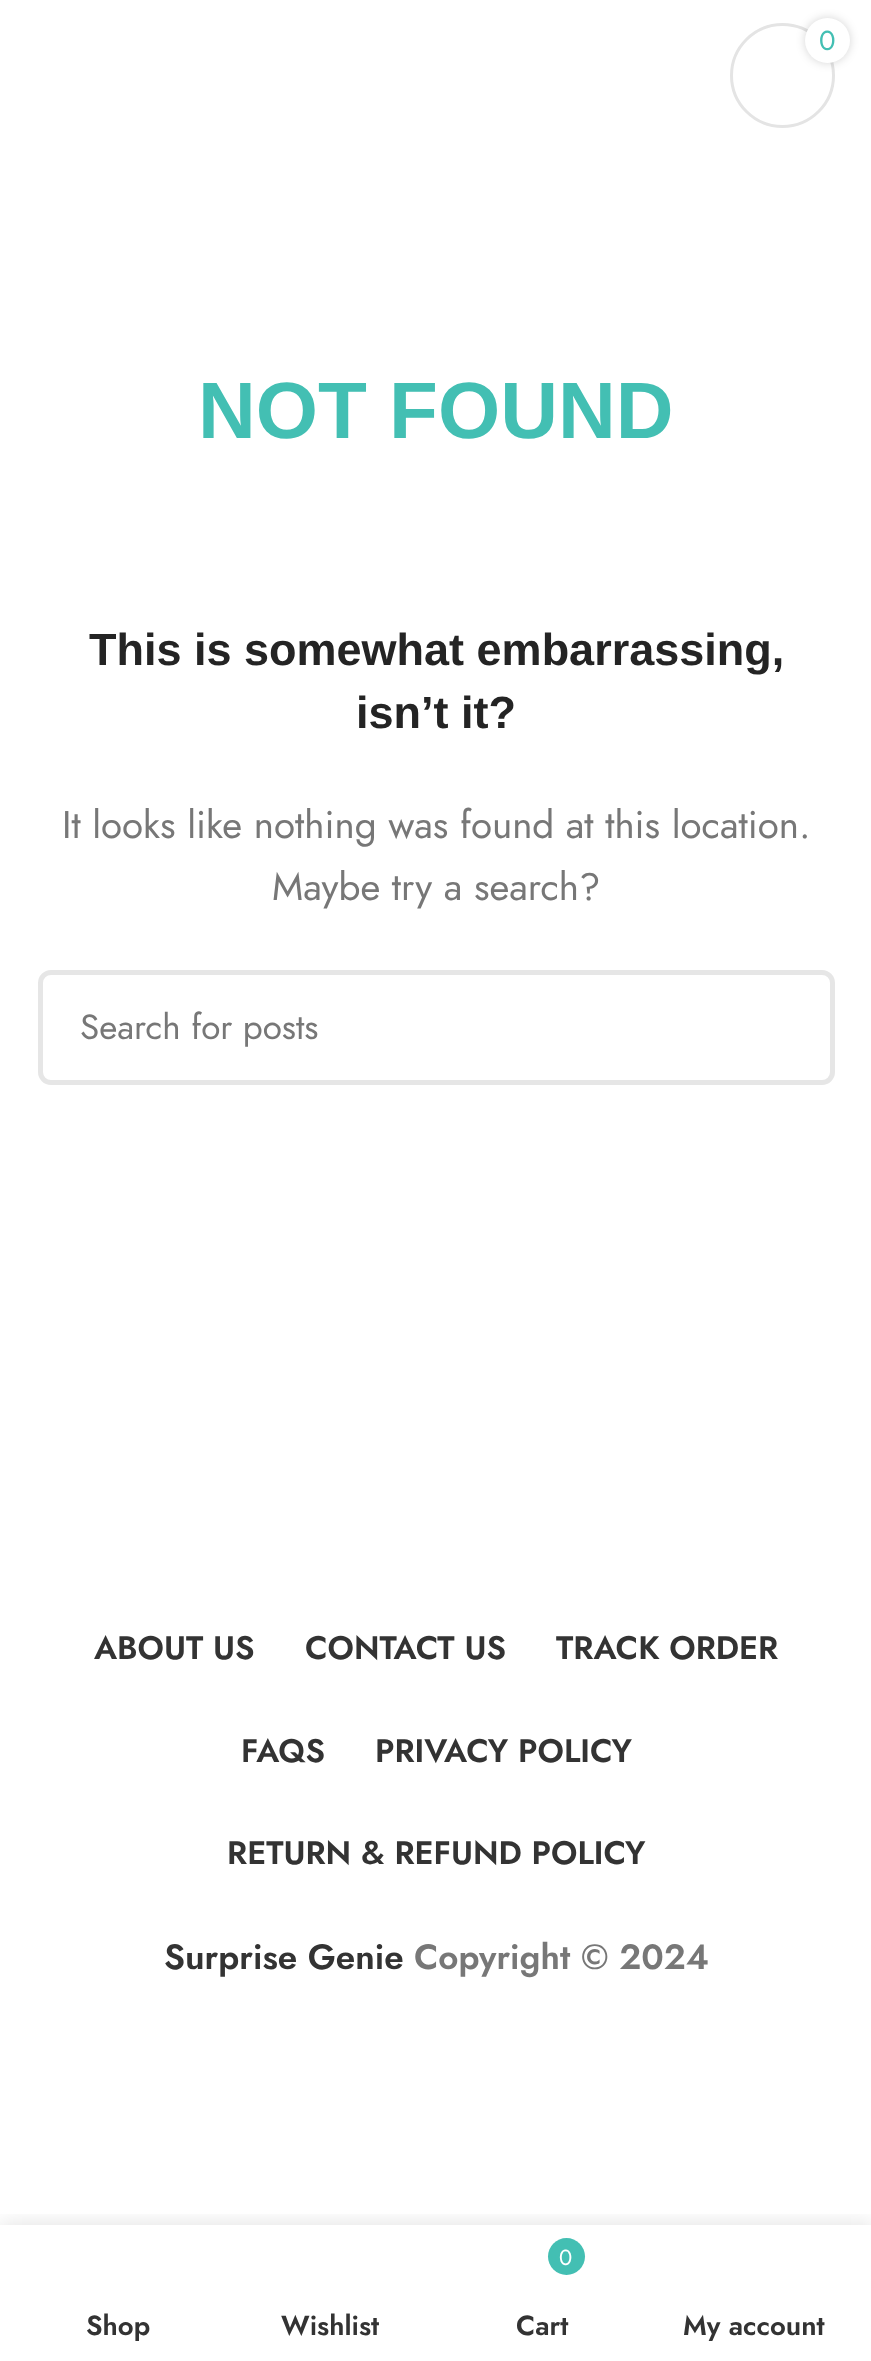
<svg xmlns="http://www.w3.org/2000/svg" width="871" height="2361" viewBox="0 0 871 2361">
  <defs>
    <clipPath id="clip1"><rect x="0" y="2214" width="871" height="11"/></clipPath>
  </defs>
  <rect width="100%" height="100%" fill="rgb(255,255,255)"/>
  <circle cx="782.5" cy="75.5" r="51" fill="none" stroke="rgb(228,228,228)" stroke-width="3"/>
  <rect x="805" y="18" width="45" height="45" rx="22.5" fill="rgba(0,0,0,0.17)" filter="blur(5px)"/>
  <circle cx="827.5" cy="40.5" r="22.5" fill="rgb(255,255,255)"/>
  <text x="819" y="50" font-family="Jost" font-size="27.5" fill="rgb(67,191,179)">0</text>
  <text x="198" y="438" font-family="Liberation Sans" font-size="80" font-weight="bold" fill="rgb(67,191,179)">NOT FOUND</text>
  <g font-family="Liberation Sans" font-size="45" font-weight="bold" fill="rgb(36,36,36)">
    <text x="89" y="665">This is somewhat embarrassing,</text>
    <text x="356" y="728">isn’t it?</text>
  </g>
  <g font-family="Jost" font-size="38.5" fill="rgb(119,119,119)">
    <text x="62" y="838">It looks like nothing was found at this location.</text>
    <text x="272" y="900">Maybe try a search?</text>
  </g>
  <rect x="40.5" y="972.5" width="792" height="110" rx="10.5" fill="none" stroke="rgb(230,230,230)" stroke-width="5"/>
  <text x="80" y="1039" font-family="Jost" font-size="35" fill="rgb(119,119,119)">Search for posts</text>
  <g font-family="Jost" font-size="32.5" font-weight="600" fill="rgb(51,51,51)">
    <text x="94" y="1659">ABOUT US</text>
    <text x="305" y="1659">CONTACT US</text>
    <text x="556" y="1659">TRACK ORDER</text>
    <text x="241" y="1762">FAQS</text>
    <text x="375" y="1762">PRIVACY POLICY</text>
    <text x="227" y="1864">RETURN &amp; REFUND POLICY</text>
  </g>
  <text x="164" y="1969" font-family="Jost" font-size="35" font-weight="600" fill="rgb(51,51,51)">Surprise Genie</text>
  <text x="414" y="1969" font-family="Jost" font-size="35" font-weight="600" fill="rgb(119,119,119)">Copyright © 2024</text>
  <g clip-path="url(#clip1)">
    <rect x="0" y="2225" width="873" height="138" fill="rgba(0,0,0,0.12)" filter="blur(11px)"/>
  </g>
  <g font-family="Jost" font-size="27.5" font-weight="600" fill="rgb(51,51,51)">
    <text x="86" y="2335">Shop</text>
    <text x="281" y="2335">Wishlist</text>
  </g>
  <circle cx="566.5" cy="2256.5" r="18.5" fill="rgb(67,191,179)"/>
  <text x="559" y="2265" font-family="Jost" font-size="22" fill="rgb(255,255,255)">0</text>
  <g font-family="Jost" font-size="27.5" font-weight="600" fill="rgb(51,51,51)">
    <text x="516" y="2335">Cart</text>
    <text x="683" y="2335">My account</text>
  </g>
</svg>
